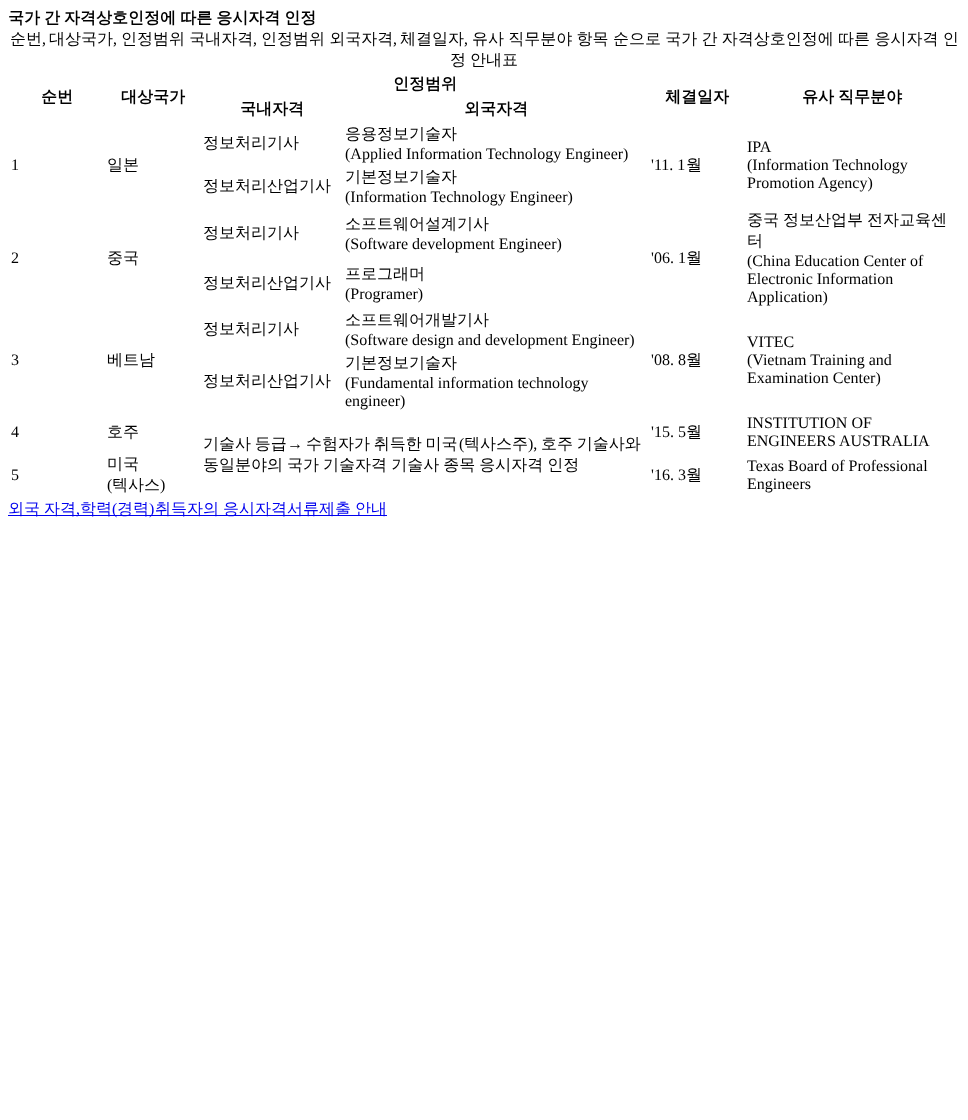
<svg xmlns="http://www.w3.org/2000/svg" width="968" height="1120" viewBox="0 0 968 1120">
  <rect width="100%" height="100%" fill="rgb(255,255,255)"/>
  <text x="8" y="23" word-spacing="-0.75" font-family="WenQuanYi Zen Hei" font-size="16" font-weight="bold" fill="rgb(0,0,0)">국가 간 자격상호인정에 따른 응시자격 인정</text>
  <text x="10" y="44" font-family="WenQuanYi Zen Hei" font-size="16" font-weight="500" fill="rgb(0,0,0)">순번</text>
  <text x="42" y="44" font-family="Liberation Serif" font-size="16" fill="rgb(0,0,0)">,</text>
  <text x="49" y="44" font-family="WenQuanYi Zen Hei" font-size="16" font-weight="500" fill="rgb(0,0,0)">대상국가</text>
  <text x="113" y="44" font-family="Liberation Serif" font-size="16" fill="rgb(0,0,0)">,</text>
  <text x="121" y="44" word-spacing="-0.5" font-family="WenQuanYi Zen Hei" font-size="16" font-weight="500" fill="rgb(0,0,0)">인정범위 국내자격</text>
  <text x="253" y="44" font-family="Liberation Serif" font-size="16" fill="rgb(0,0,0)">,</text>
  <text x="261" y="44" word-spacing="-0.5" font-family="WenQuanYi Zen Hei" font-size="16" font-weight="500" fill="rgb(0,0,0)">인정범위 외국자격</text>
  <text x="393" y="44" font-family="Liberation Serif" font-size="16" fill="rgb(0,0,0)">,</text>
  <text x="400" y="44" font-family="WenQuanYi Zen Hei" font-size="16" font-weight="500" fill="rgb(0,0,0)">체결일자</text>
  <text x="464" y="44" font-family="Liberation Serif" font-size="16" fill="rgb(0,0,0)">,</text>
  <g font-family="WenQuanYi Zen Hei" font-size="16" font-weight="500" fill="rgb(0,0,0)">
    <text x="472" y="44" word-spacing="-0.5">유사 직무분야 항목 순으로 국가 간 자격상호인정에 따른 응시자격 인</text>
    <text x="450" y="65" word-spacing="-0.75">정 안내표</text>
  </g>
  <g font-family="WenQuanYi Zen Hei" font-size="16" font-weight="bold" fill="rgb(0,0,0)">
    <text x="393" y="89">인정범위</text>
    <text x="41" y="102">순번</text>
    <text x="121" y="102">대상국가</text>
    <text x="665" y="102">체결일자</text>
    <text x="802" y="102" word-spacing="-0.75">유사 직무분야</text>
    <text x="240" y="114">국내자격</text>
    <text x="464" y="114">외국자격</text>
  </g>
  <text x="11" y="170" font-family="Liberation Serif" font-size="16" fill="rgb(0,0,0)">1</text>
  <g font-family="WenQuanYi Zen Hei" font-size="16" font-weight="500" fill="rgb(0,0,0)">
    <text x="107" y="170">일본</text>
    <text x="203" y="148">정보처리기사</text>
    <text x="345" y="139">응용정보기술자</text>
  </g>
  <g font-family="Liberation Serif" font-size="16" fill="rgb(0,0,0)">
    <text x="345" y="159">(Applied Information Technology Engineer)</text>
    <text x="651" y="170">'11. 1</text>
  </g>
  <text x="686" y="170" font-family="WenQuanYi Zen Hei" font-size="16" font-weight="500" fill="rgb(0,0,0)">월</text>
  <g font-family="Liberation Serif" font-size="16" fill="rgb(0,0,0)">
    <text>
      <tspan x="747" y="152">IPA</tspan>
      <tspan x="747" y="170">(Information Technology</tspan>
      <tspan x="747" y="188">Promotion Agency)</tspan>
    </text>
  </g>
  <g font-family="WenQuanYi Zen Hei" font-size="16" font-weight="500" fill="rgb(0,0,0)">
    <text x="203" y="191">정보처리산업기사</text>
    <text x="345" y="182">기본정보기술자</text>
  </g>
  <text x="345" y="202" font-family="Liberation Serif" font-size="16" fill="rgb(0,0,0)">(Information Technology Engineer)</text>
  <g font-family="WenQuanYi Zen Hei" font-size="16" font-weight="500" fill="rgb(0,0,0)">
    <text x="203" y="238">정보처리기사</text>
    <text x="345" y="229">소프트웨어설계기사</text>
  </g>
  <text x="345" y="249" font-family="Liberation Serif" font-size="16" fill="rgb(0,0,0)">(Software development Engineer)</text>
  <g font-family="WenQuanYi Zen Hei" font-size="16" font-weight="500" fill="rgb(0,0,0)">
    <text>
      <tspan x="747" y="225" word-spacing="-0.75">중국 정보산업부 전자교육센</tspan>
      <tspan x="747" y="246">터</tspan>
    </text>
  </g>
  <g font-family="Liberation Serif" font-size="16" fill="rgb(0,0,0)">
    <text>
      <tspan x="747" y="266">(China Education Center of</tspan>
      <tspan x="747" y="284">Electronic Information</tspan>
      <tspan x="747" y="302">Application)</tspan>
    </text>
    <text x="11" y="263">2</text>
  </g>
  <text x="107" y="263" font-family="WenQuanYi Zen Hei" font-size="16" font-weight="500" fill="rgb(0,0,0)">중국</text>
  <text x="651" y="263" font-family="Liberation Serif" font-size="16" fill="rgb(0,0,0)">'06. 1</text>
  <g font-family="WenQuanYi Zen Hei" font-size="16" font-weight="500" fill="rgb(0,0,0)">
    <text x="686" y="263">월</text>
    <text x="203" y="288">정보처리산업기사</text>
    <text x="345" y="279">프로그래머</text>
  </g>
  <text x="345" y="299" font-family="Liberation Serif" font-size="16" fill="rgb(0,0,0)">(Programer)</text>
  <g font-family="WenQuanYi Zen Hei" font-size="16" font-weight="500" fill="rgb(0,0,0)">
    <text x="203" y="334">정보처리기사</text>
    <text x="345" y="325">소프트웨어개발기사</text>
  </g>
  <g font-family="Liberation Serif" font-size="16" fill="rgb(0,0,0)">
    <text x="345" y="345">(Software design and development Engineer)</text>
    <text x="11" y="365">3</text>
  </g>
  <text x="107" y="365" font-family="WenQuanYi Zen Hei" font-size="16" font-weight="500" fill="rgb(0,0,0)">베트남</text>
  <text x="651" y="365" font-family="Liberation Serif" font-size="16" fill="rgb(0,0,0)">'08. 8</text>
  <text x="686" y="365" font-family="WenQuanYi Zen Hei" font-size="16" font-weight="500" fill="rgb(0,0,0)">월</text>
  <g font-family="Liberation Serif" font-size="16" fill="rgb(0,0,0)">
    <text>
      <tspan x="747" y="347">VITEC</tspan>
      <tspan x="747" y="365">(Vietnam Training and</tspan>
      <tspan x="747" y="383">Examination Center)</tspan>
    </text>
  </g>
  <g font-family="WenQuanYi Zen Hei" font-size="16" font-weight="500" fill="rgb(0,0,0)">
    <text x="203" y="386">정보처리산업기사</text>
    <text x="345" y="368">기본정보기술자</text>
  </g>
  <g font-family="Liberation Serif" font-size="16" fill="rgb(0,0,0)">
    <text>
      <tspan x="345" y="388">(Fundamental information technology</tspan>
      <tspan x="345" y="406">engineer)</tspan>
    </text>
    <text x="11" y="437">4</text>
  </g>
  <text x="107" y="437" font-family="WenQuanYi Zen Hei" font-size="16" font-weight="500" fill="rgb(0,0,0)">호주</text>
  <text x="651" y="437" font-family="Liberation Serif" font-size="16" fill="rgb(0,0,0)">'15. 5</text>
  <text x="686" y="437" font-family="WenQuanYi Zen Hei" font-size="16" font-weight="500" fill="rgb(0,0,0)">월</text>
  <g font-family="Liberation Serif" font-size="16" fill="rgb(0,0,0)">
    <text>
      <tspan x="747" y="428">INSTITUTION OF</tspan>
      <tspan x="747" y="446">ENGINEERS AUSTRALIA</tspan>
    </text>
  </g>
  <text x="203" y="449" word-spacing="-1" font-family="WenQuanYi Zen Hei" font-size="16" font-weight="500" fill="rgb(0,0,0)">기술사 등급</text>
  <text x="287" y="449" font-family="Liberation Serif" font-size="16" fill="rgb(0,0,0)">→</text>
  <text x="306" y="449" word-spacing="-1" font-family="WenQuanYi Zen Hei" font-size="16" font-weight="500" fill="rgb(0,0,0)">수험자가 취득한 미국</text>
  <text x="459" y="449" font-family="Liberation Serif" font-size="16" fill="rgb(0,0,0)">(</text>
  <text x="464" y="449" font-family="WenQuanYi Zen Hei" font-size="16" font-weight="500" fill="rgb(0,0,0)">텍사스주</text>
  <text x="528" y="449" font-family="Liberation Serif" font-size="16" fill="rgb(0,0,0)">),</text>
  <g font-family="WenQuanYi Zen Hei" font-size="16" font-weight="500" fill="rgb(0,0,0)">
    <text x="541" y="449" word-spacing="-1">호주 기술사와</text>
    <text x="203" y="470" word-spacing="-0.75">동일분야의 국가 기술자격 기술사 종목 응시자격 인정</text>
  </g>
  <text x="11" y="480" font-family="Liberation Serif" font-size="16" fill="rgb(0,0,0)">5</text>
  <text x="107" y="469" font-family="WenQuanYi Zen Hei" font-size="16" font-weight="500" fill="rgb(0,0,0)">미국</text>
  <text x="107" y="490" font-family="Liberation Serif" font-size="16" fill="rgb(0,0,0)">(</text>
  <text x="112" y="490" font-family="WenQuanYi Zen Hei" font-size="16" font-weight="500" fill="rgb(0,0,0)">텍사스</text>
  <g font-family="Liberation Serif" font-size="16" fill="rgb(0,0,0)">
    <text x="160" y="490">)</text>
    <text x="651" y="480">'16. 3</text>
  </g>
  <text x="686" y="480" font-family="WenQuanYi Zen Hei" font-size="16" font-weight="500" fill="rgb(0,0,0)">월</text>
  <g font-family="Liberation Serif" font-size="16" fill="rgb(0,0,0)">
    <text>
      <tspan x="747" y="471">Texas Board of Professional</tspan>
      <tspan x="747" y="489">Engineers</tspan>
    </text>
  </g>
  <rect x="8" y="515" width="379" height="1" fill="rgb(0,0,238)"/>
  <text x="8" y="514" word-spacing="-0.75" font-family="WenQuanYi Zen Hei" font-size="16" font-weight="500" fill="rgb(0,0,238)">외국 자격</text>
  <text x="76" y="514" font-family="Liberation Serif" font-size="16" fill="rgb(0,0,238)">,</text>
  <text x="80" y="514" font-family="WenQuanYi Zen Hei" font-size="16" font-weight="500" fill="rgb(0,0,238)">학력</text>
  <text x="112" y="514" font-family="Liberation Serif" font-size="16" fill="rgb(0,0,238)">(</text>
  <text x="117" y="514" font-family="WenQuanYi Zen Hei" font-size="16" font-weight="500" fill="rgb(0,0,238)">경력</text>
  <text x="149" y="514" font-family="Liberation Serif" font-size="16" fill="rgb(0,0,238)">)</text>
  <text x="155" y="514" word-spacing="-0.75" font-family="WenQuanYi Zen Hei" font-size="16" font-weight="500" fill="rgb(0,0,238)">취득자의 응시자격서류제출 안내</text>
</svg>
